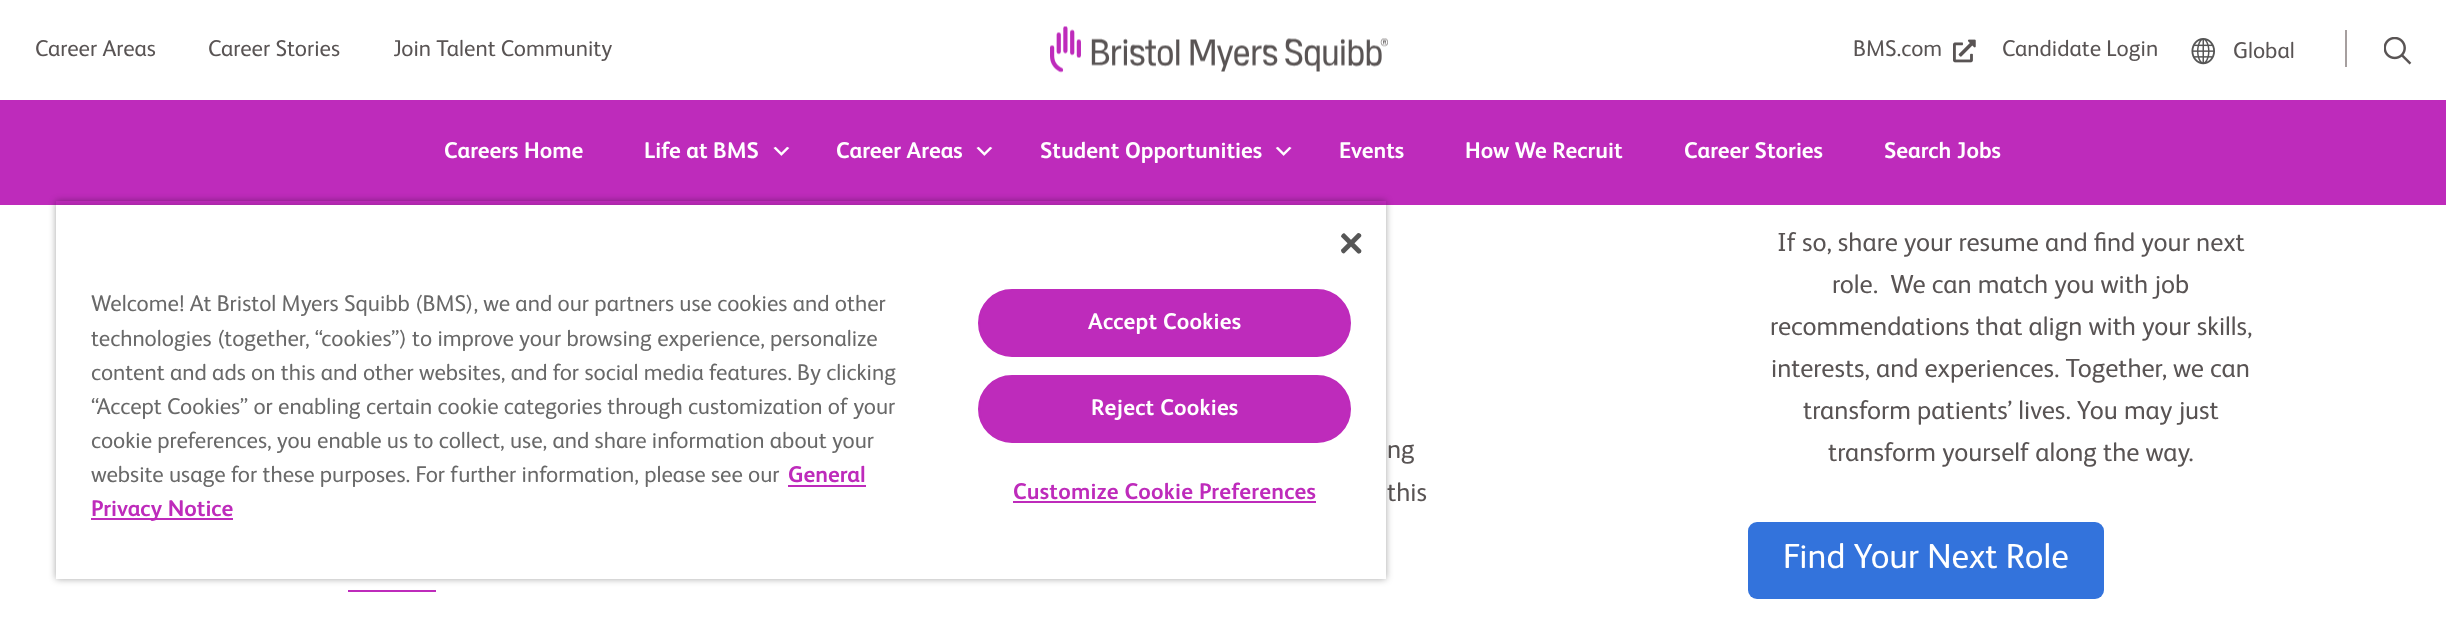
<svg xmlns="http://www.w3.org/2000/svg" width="2446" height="635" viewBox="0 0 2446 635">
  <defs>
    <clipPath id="clip1"><path d="M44 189H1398V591H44ZM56 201H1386V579H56Z" clip-rule="evenodd"/></clipPath>
    <clipPath id="clip2"><rect x="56" y="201" width="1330" height="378"/></clipPath>
  </defs>
  <rect width="100%" height="100%" fill="rgb(255,255,255)"/>
  <g font-family="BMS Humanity" font-size="22.75" fill="rgb(89,84,84)">
    <text x="35" y="56">Career Areas</text>
    <text x="208" y="56">Career Stories</text>
    <text x="393" y="56">Join Talent Community</text>
  </g>
  <image x="1050" y="26" width="338" height="47" href="pic1.png"/>
  <text x="1853" y="56" font-family="BMS Humanity" font-size="22.75" fill="rgb(89,84,84)">BMS.com</text>
  <image x="1953" y="39" width="23" height="24" href="pic2.png"/>
  <text x="2002" y="56" font-family="BMS Humanity" font-size="22.75" fill="rgb(89,84,84)">Candidate Login</text>
  <image x="2191" y="38" width="24" height="27" href="pic3.png"/>
  <text x="2233" y="58" font-family="BMS Humanity" font-size="22.75" fill="rgb(89,84,84)">Global</text>
  <rect x="2345" y="30" width="2" height="37" fill="rgb(166,159,159)"/>
  <image x="2384" y="37" width="28" height="28" href="pic4.png"/>
  <rect x="0" y="100" width="2446" height="105" fill="rgb(190,43,187)"/>
  <g font-family="BMS Humanity" font-size="22.75" font-weight="bold" fill="rgb(255,255,255)">
    <text x="444" y="158">Careers Home</text>
    <text x="644" y="158">Life at BMS</text>
  </g>
  <image x="773" y="146" width="17" height="10" href="pic5.png"/>
  <text x="836" y="158" font-family="BMS Humanity" font-size="22.75" font-weight="bold" fill="rgb(255,255,255)">Career Areas</text>
  <image x="976" y="146" width="17" height="10" href="pic5.png"/>
  <text x="1040" y="158" font-family="BMS Humanity" font-size="22.75" font-weight="bold" fill="rgb(255,255,255)">Student Opportunities</text>
  <image x="1275" y="146" width="17" height="10" href="pic6.png"/>
  <g font-family="BMS Humanity" font-size="22.75" font-weight="bold" fill="rgb(255,255,255)">
    <text x="1339" y="158">Events</text>
    <text x="1465" y="158">How We Recruit</text>
    <text x="1684" y="158">Career Stories</text>
    <text x="1884" y="158">Search Jobs</text>
  </g>
  <g font-family="BMS Humanity" font-size="26.25" fill="rgb(89,84,84)">
    <text>
      <tspan x="1387" y="458">ng</tspan>
      <tspan x="1387" y="501">this</tspan>
    </text>
  </g>
  <rect x="348" y="590" width="88" height="2" fill="rgb(190,43,187)"/>
  <g font-family="BMS Humanity" font-size="26.25" fill="rgb(89,84,84)">
    <text x="1777" y="251">If so, share your resume and find your next</text>
    <text x="1832" y="293" xml:space="preserve">role.  We can match you with job</text>
    <text x="1770" y="335">recommendations that align with your skills,</text>
    <text x="1771" y="377">interests, and experiences. Together, we can</text>
    <text x="1803" y="419">transform patients’ lives. You may just</text>
    <text x="1828" y="461">transform yourself along the way.</text>
  </g>
  <rect x="1748" y="522" width="356" height="77" rx="9" fill="rgb(51,115,220)"/>
  <text x="1783" y="568" font-family="BMS Humanity" font-size="35" fill="rgb(255,255,255)">Find Your Next Role</text>
  <g clip-path="url(#clip1)">
    <rect x="56" y="201" width="1330" height="378" fill="rgba(0,0,0,0.35)" filter="blur(3.5px)"/>
  </g>
  <g clip-path="url(#clip2)">
    <rect x="56" y="205" width="1330" height="374" fill="rgba(0,0,0,0.2)" filter="blur(3.5px)"/>
  </g>
  <rect x="56" y="205" width="1330" height="374" fill="rgb(255,255,255)"/>
  <image x="1341" y="233" width="21" height="21" href="pic7.png"/>
  <g font-family="BMS Humanity" font-size="22.75" fill="rgb(105,105,105)">
    <text>
      <tspan x="91" y="311">Welcome! At Bristol Myers Squibb (BMS), we and our partners use cookies and other</tspan>
      <tspan x="91" y="346">technologies (together, “cookies”) to improve your browsing experience, personalize</tspan>
      <tspan x="91" y="380">content and ads on this and other websites, and for social media features. By clicking</tspan>
      <tspan x="91" y="414">“Accept Cookies” or enabling certain cookie categories through customization of your</tspan>
      <tspan x="91" y="448">cookie preferences, you enable us to collect, use, and share information about your</tspan>
      <tspan x="91" y="482">website usage for these purposes. For further information, please see our</tspan>
    </text>
  </g>
  <text x="788" y="482" font-family="BMS Humanity" font-size="22.75" font-weight="bold" fill="rgb(190,43,187)">General</text>
  <rect x="788" y="485" width="78" height="2" fill="rgb(190,43,187)"/>
  <rect x="91" y="518" width="142" height="2" fill="rgb(190,43,187)"/>
  <text x="91" y="516" font-family="BMS Humanity" font-size="22.75" font-weight="bold" fill="rgb(190,43,187)">Privacy Notice</text>
  <rect x="979" y="290" width="371" height="66" rx="33" fill="rgb(190,43,187)" stroke="rgb(190,43,187)" stroke-width="2"/>
  <text x="1088" y="329" font-family="BMS Humanity" font-size="22.75" font-weight="bold" letter-spacing="0.25" fill="rgb(255,255,255)">Accept Cookies</text>
  <rect x="979" y="376" width="371" height="66" rx="33" fill="rgb(190,43,187)" stroke="rgb(190,43,187)" stroke-width="2"/>
  <text x="1091" y="415" font-family="BMS Humanity" font-size="22.75" font-weight="bold" letter-spacing="0.25" fill="rgb(255,255,255)">Reject Cookies</text>
  <text x="1013" y="499" font-family="BMS Humanity" font-size="22.75" font-weight="bold" letter-spacing="0.25" fill="rgb(190,43,187)">Customize Cookie Preferences</text>
  <rect x="1013" y="501" width="303" height="2" fill="rgb(190,43,187)"/>
</svg>
